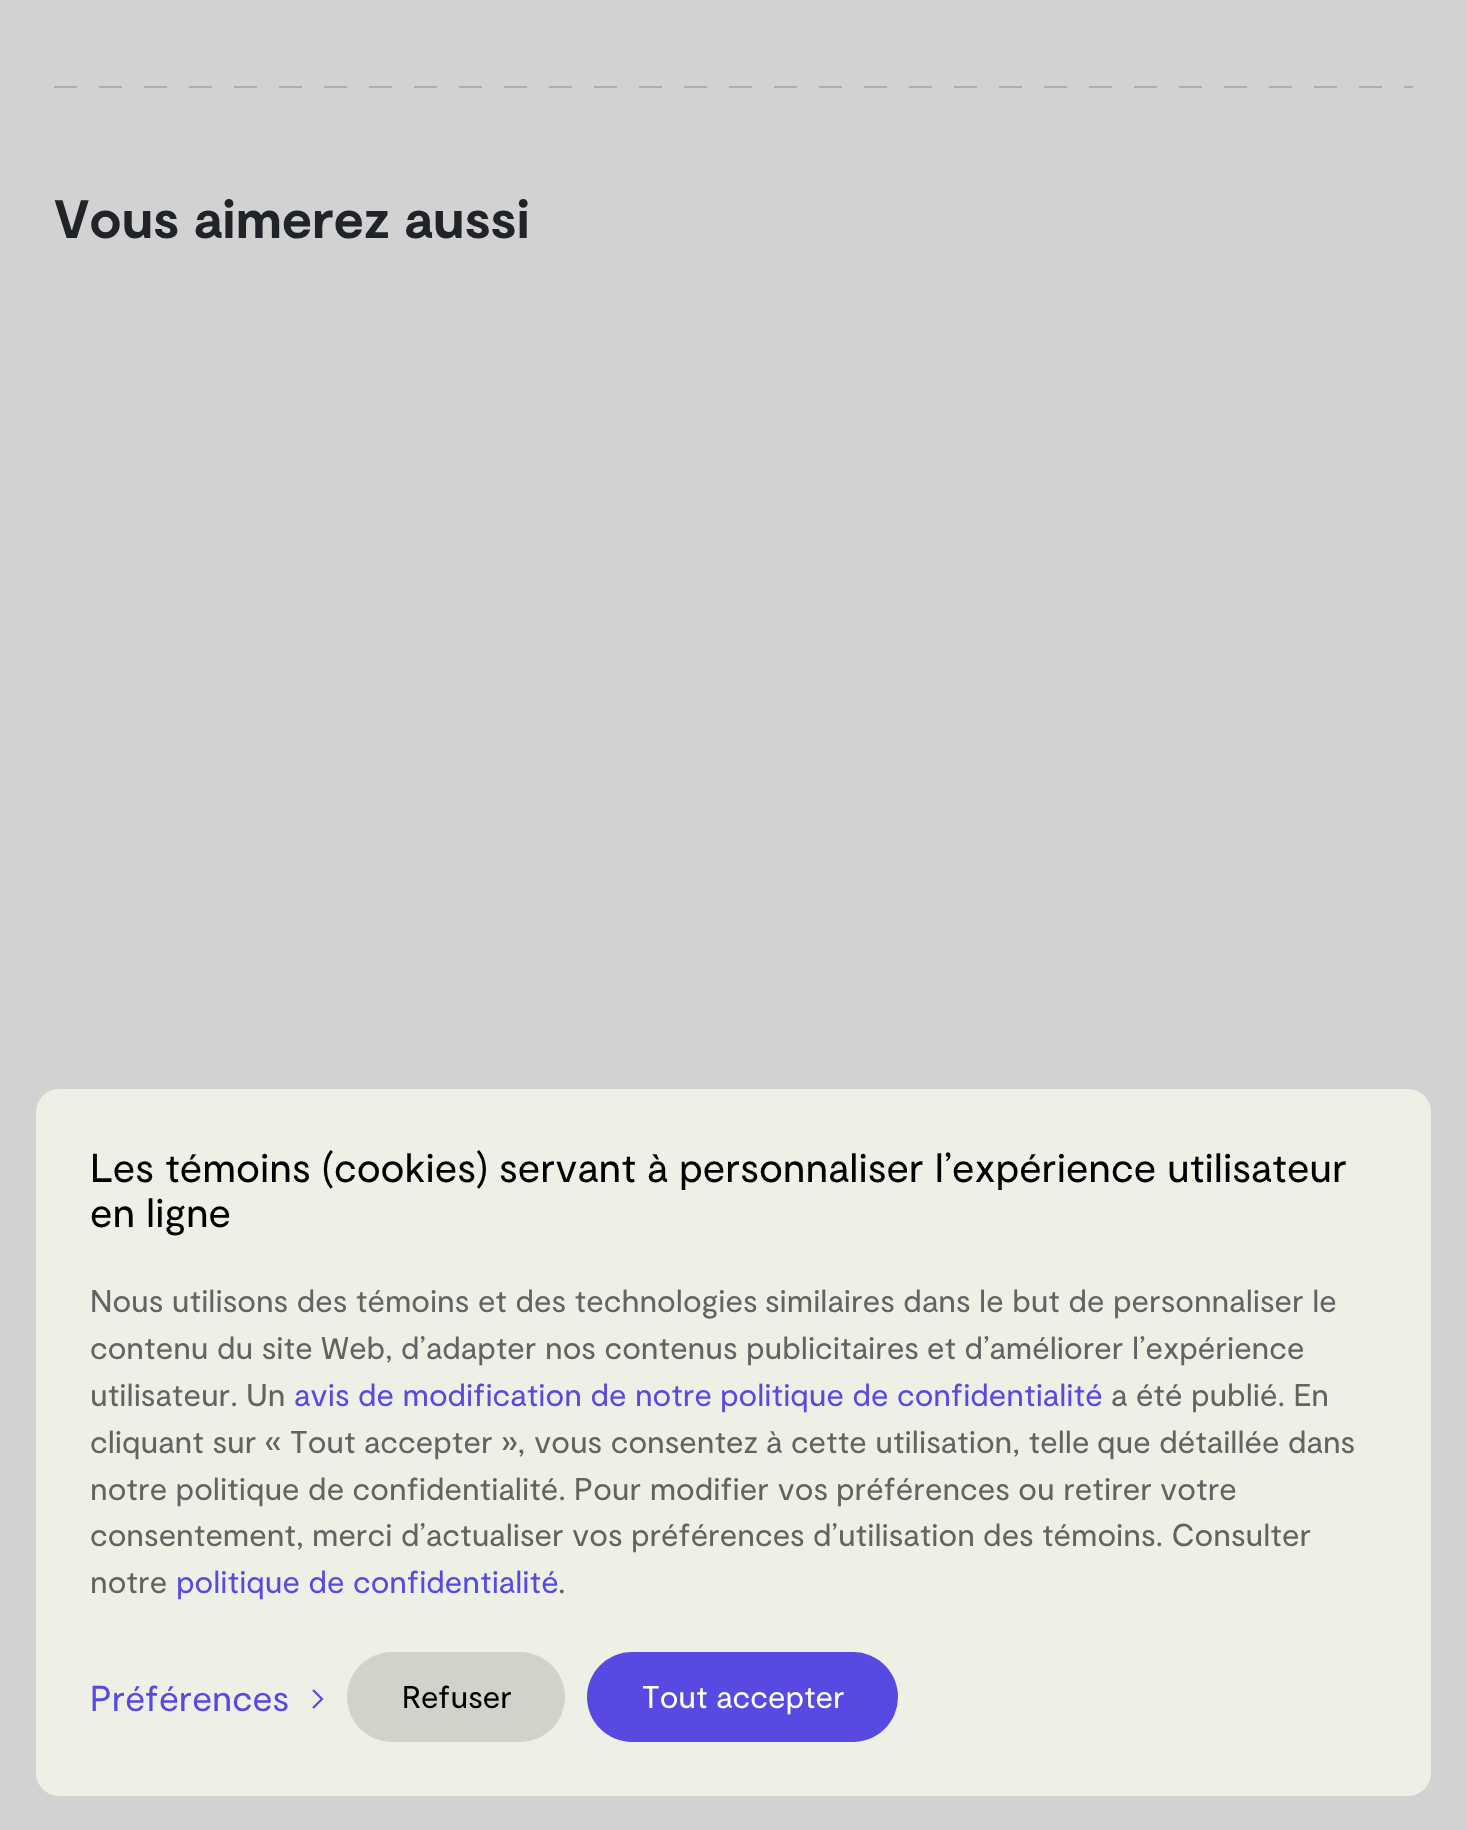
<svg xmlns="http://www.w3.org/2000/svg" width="1467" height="1830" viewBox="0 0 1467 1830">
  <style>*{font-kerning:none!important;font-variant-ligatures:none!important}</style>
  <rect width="100%" height="100%" fill="rgb(210,210,210)"/>
  <image x="54" y="86" width="1359" height="2" href="pic1.png"/>
  <text x="54" y="238" font-family="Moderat" font-size="54" font-weight="bold" fill="rgb(32,35,39)">Vous aimerez aussi</text>
  <rect x="36" y="1089" width="1395" height="707" rx="23" fill="rgb(238,239,229)"/>
  <g font-family="Moderat" font-size="40.5" fill="rgb(0,0,0)">
    <text x="90" y="1182">Les témoins (cookies)</text>
    <text x="499" y="1182">servant à personnaliser l’expérience</text>
    <text x="1167" y="1182">utilisateur</text>
    <text x="90" y="1227">en ligne</text>
  </g>
  <g font-family="Moderat" font-size="31.55" fill="rgb(99,99,99)">
    <text x="90" y="1312">Nous utilisons des témoins et des technologies</text>
    <text x="765" y="1312">similaires dans le but de personnaliser le</text>
    <text x="90" y="1359">contenu du site Web,</text>
    <text x="401" y="1359">d’adapter nos contenus publicitaires</text>
    <text x="927" y="1359">et d’améliorer l’expérience</text>
    <text x="90" y="1406">utilisateur.</text>
    <text x="246" y="1406">Un</text>
  </g>
  <text x="294" y="1406" font-family="Moderat" font-size="31.55" fill="rgb(87,74,226)">avis de modification de notre</text>
  <text x="720" y="1406" font-family="Moderat" font-size="31.55" fill="rgb(87,74,226)">politique de confidentialité</text>
  <g font-family="Moderat" font-size="31.55" fill="rgb(99,99,99)">
    <text x="1111" y="1406">a été publié. En</text>
    <text x="90" y="1453">cliquant sur « Tout</text>
    <text x="364" y="1453">accepter », vous consentez</text>
    <text x="766" y="1453">à cette utilisation, telle</text>
    <text x="1097" y="1453">que détaillée dans</text>
    <text x="90" y="1500">notre politique de confidentialité.</text>
    <text x="574" y="1500">Pour modifier vos</text>
    <text x="836" y="1500">préférences ou retirer</text>
    <text x="1160" y="1500">votre</text>
    <text x="90" y="1546" word-spacing="-0.25">consentement, merci</text>
    <text x="401" y="1546" word-spacing="-0.25">d’actualiser vos préférences</text>
    <text x="813" y="1546" word-spacing="-0.25">d’utilisation des témoins. Consulter</text>
    <text x="90" y="1593">notre</text>
  </g>
  <text x="176" y="1593" font-family="Moderat" font-size="31.55" fill="rgb(87,74,226)">politique de confidentialité</text>
  <text x="558" y="1593" font-family="Moderat" font-size="31.55" fill="rgb(99,99,99)">.</text>
  <text x="90" y="1711" font-family="Moderat" font-size="36" fill="rgb(87,74,226)">Préférences</text>
  <path d="M313 1708L322 1699L313 1690" fill="none" stroke="rgb(87,74,226)" stroke-width="2.2"/>
  <rect x="347" y="1652" width="218" height="90" rx="45" fill="rgb(209,210,201)"/>
  <text x="402" y="1708" font-family="Moderat" font-size="31.55" fill="rgb(0,0,0)">Refuser</text>
  <rect x="587" y="1652" width="311" height="90" rx="45" fill="rgb(87,74,226)"/>
  <text x="642" y="1708" font-family="Moderat" font-size="31.55" fill="rgb(255,255,255)">Tout accepter</text>
</svg>
